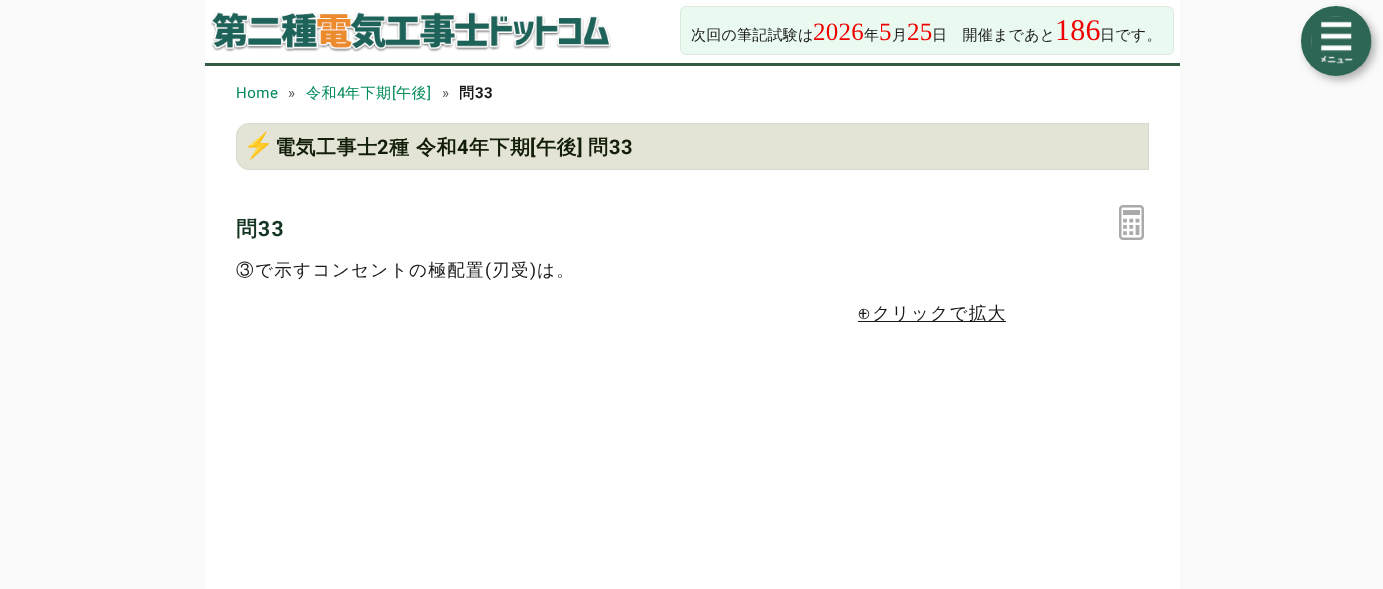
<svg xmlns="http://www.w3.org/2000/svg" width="1383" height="589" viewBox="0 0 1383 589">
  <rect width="100%" height="100%" fill="rgb(251,250,250)"/>
  <rect x="205" y="0" width="975" height="589" fill="rgb(255,255,255)"/>
  <rect x="205" y="63" width="975" height="3" fill="rgb(51,92,67)"/>
  <image x="211" y="12" width="401" height="40" href="pic1.png"/>
  <rect x="680" y="6" width="494" height="49" rx="6" fill="rgb(234,250,240)"/>
  <rect x="680.5" y="6.5" width="493" height="48" rx="5.5" fill="none" stroke="rgba(103,78,62,0.1)"/>
  <text x="691" y="40" font-family="WenQuanYi Zen Hei" font-size="15" font-weight="500" letter-spacing="0.25" fill="rgb(25,25,25)">次回の筆記試験は</text>
  <text x="813" y="40" font-family="Liberation Serif" font-size="25" letter-spacing="0.25" fill="rgb(238,0,0)">2026</text>
  <text x="864" y="40" font-family="WenQuanYi Zen Hei" font-size="15" font-weight="500" letter-spacing="0.25" fill="rgb(25,25,25)">年</text>
  <text x="879" y="40" font-family="Liberation Serif" font-size="25" letter-spacing="0.25" fill="rgb(238,0,0)">5</text>
  <text x="892" y="40" font-family="WenQuanYi Zen Hei" font-size="15" font-weight="500" letter-spacing="0.25" fill="rgb(25,25,25)">月</text>
  <text x="907" y="40" font-family="Liberation Serif" font-size="25" letter-spacing="0.25" fill="rgb(238,0,0)">25</text>
  <text x="932" y="40" font-family="WenQuanYi Zen Hei" font-size="15" font-weight="500" letter-spacing="0.25" fill="rgb(25,25,25)">日　開催まであと</text>
  <text x="1055" y="40" font-family="Liberation Serif" font-size="30" letter-spacing="0.25" fill="rgb(238,0,0)">186</text>
  <text x="1100" y="40" font-family="WenQuanYi Zen Hei" font-size="15" font-weight="500" letter-spacing="0.25" fill="rgb(25,25,25)">日です。</text>
  <rect x="1305" y="10" width="70" height="70" rx="35" fill="rgba(0,0,0,0.3)" filter="blur(4px)"/>
  <image x="1311" y="16" width="61" height="51" href="pic2.png"/>
  <circle cx="1336" cy="41" r="30" fill="none" stroke="rgb(46,102,86)" stroke-width="10"/>
  <text x="236" y="98" font-family="Roboto" font-size="15" letter-spacing="0.5" fill="rgb(0,138,88)">Home</text>
  <text x="288" y="98" font-family="Roboto" font-size="15" letter-spacing="0.5" fill="rgb(85,85,85)">»</text>
  <text x="306" y="98" font-family="WenQuanYi Zen Hei" font-size="15" font-weight="500" letter-spacing="0.5" fill="rgb(0,138,88)">令和</text>
  <text x="337" y="98" font-family="Roboto" font-size="15" letter-spacing="0.5" fill="rgb(0,138,88)">4</text>
  <text x="345" y="98" font-family="WenQuanYi Zen Hei" font-size="15" font-weight="500" letter-spacing="0.5" fill="rgb(0,138,88)">年下期</text>
  <text x="392" y="98" font-family="Roboto" font-size="15" letter-spacing="0.5" fill="rgb(0,138,88)">[</text>
  <text x="396" y="98" font-family="WenQuanYi Zen Hei" font-size="15" font-weight="500" letter-spacing="0.5" fill="rgb(0,138,88)">午後</text>
  <text x="427" y="98" font-family="Roboto" font-size="15" letter-spacing="0.5" fill="rgb(0,138,88)">]</text>
  <text x="442" y="98" font-family="Roboto" font-size="15" letter-spacing="0.5" fill="rgb(85,85,85)">»</text>
  <text x="459" y="98" font-family="WenQuanYi Zen Hei" font-size="15" font-weight="bold" letter-spacing="0.5" fill="rgb(25,25,25)">問</text>
  <text x="475" y="98" font-family="Roboto" font-size="15" font-weight="bold" letter-spacing="0.5" fill="rgb(25,25,25)">33</text>
  <path d="M249 123H1149V170H249C242 170 236 164 236 157V136C236 129 242 123 249 123Z" fill="rgb(227,227,214)"/>
  <path d="M249 123.5H1148.5V169.5H249C242 169.5 236.5 164 236.5 157V136C236.5 129 242 123.5 249 123.5Z" fill="none" stroke="rgba(128,128,128,0.1)"/>
  <text x="243" y="154" font-family="Noto Color Emoji" font-size="25" font-weight="bold" letter-spacing="0.5" fill="rgb(18,30,7)">⚡</text>
  <text x="275" y="154" font-family="WenQuanYi Zen Hei" font-size="20" font-weight="bold" letter-spacing="0.5" fill="rgb(18,30,7)">電気工事士</text>
  <text x="377" y="154" font-family="Roboto" font-size="20" font-weight="bold" letter-spacing="0.5" fill="rgb(18,30,7)">2</text>
  <text x="389" y="154" font-family="WenQuanYi Zen Hei" font-size="20" font-weight="bold" letter-spacing="0.5" fill="rgb(18,30,7)">種 令和</text>
  <text x="457" y="154" font-family="Roboto" font-size="20" font-weight="bold" letter-spacing="0.5" fill="rgb(18,30,7)">4</text>
  <text x="469" y="154" font-family="WenQuanYi Zen Hei" font-size="20" font-weight="bold" letter-spacing="0.5" fill="rgb(18,30,7)">年下期</text>
  <text x="530" y="154" font-family="Roboto" font-size="20" font-weight="bold" letter-spacing="0.5" fill="rgb(18,30,7)">[</text>
  <text x="536" y="154" font-family="WenQuanYi Zen Hei" font-size="20" font-weight="bold" letter-spacing="0.5" fill="rgb(18,30,7)">午後</text>
  <text x="577" y="154" font-family="Roboto" font-size="20" font-weight="bold" letter-spacing="0.5" fill="rgb(18,30,7)">]</text>
  <text x="588" y="154" font-family="WenQuanYi Zen Hei" font-size="20" font-weight="bold" letter-spacing="0.5" fill="rgb(18,30,7)">問</text>
  <text x="609" y="154" font-family="Roboto" font-size="20" font-weight="bold" letter-spacing="0.5" fill="rgb(18,30,7)">33</text>
  <text x="236" y="236" font-family="WenQuanYi Zen Hei" font-size="21" font-weight="bold" letter-spacing="1.4" fill="rgb(20,54,35)">問</text>
  <text x="258" y="236" font-family="Roboto" font-size="21" font-weight="bold" letter-spacing="1.4" fill="rgb(20,54,35)">33</text>
  <image x="1119" y="205" width="25" height="35" href="pic3.png"/>
  <text x="236" y="276" font-family="WenQuanYi Zen Hei" font-size="17.5" font-weight="500" letter-spacing="1.4" fill="rgb(25,25,25)">③で示すコンセントの極配置</text>
  <text x="485" y="276" font-family="Roboto" font-size="17.5" letter-spacing="1.4" fill="rgb(25,25,25)">(</text>
  <text x="492" y="276" font-family="WenQuanYi Zen Hei" font-size="17.5" font-weight="500" letter-spacing="1.4" fill="rgb(25,25,25)">刃受</text>
  <text x="530" y="276" font-family="Roboto" font-size="17.5" letter-spacing="1.4" fill="rgb(25,25,25)">)</text>
  <text x="537" y="276" font-family="WenQuanYi Zen Hei" font-size="17.5" font-weight="500" letter-spacing="1.4" fill="rgb(25,25,25)">は。</text>
  <rect x="858" y="321" width="148" height="1" fill="rgb(25,25,25)"/>
  <text x="857" y="319" font-family="WenQuanYi Zen Hei" font-size="17.5" font-weight="500" letter-spacing="1.4" fill="rgb(25,25,25)">⊕クリックで拡大</text>
</svg>
